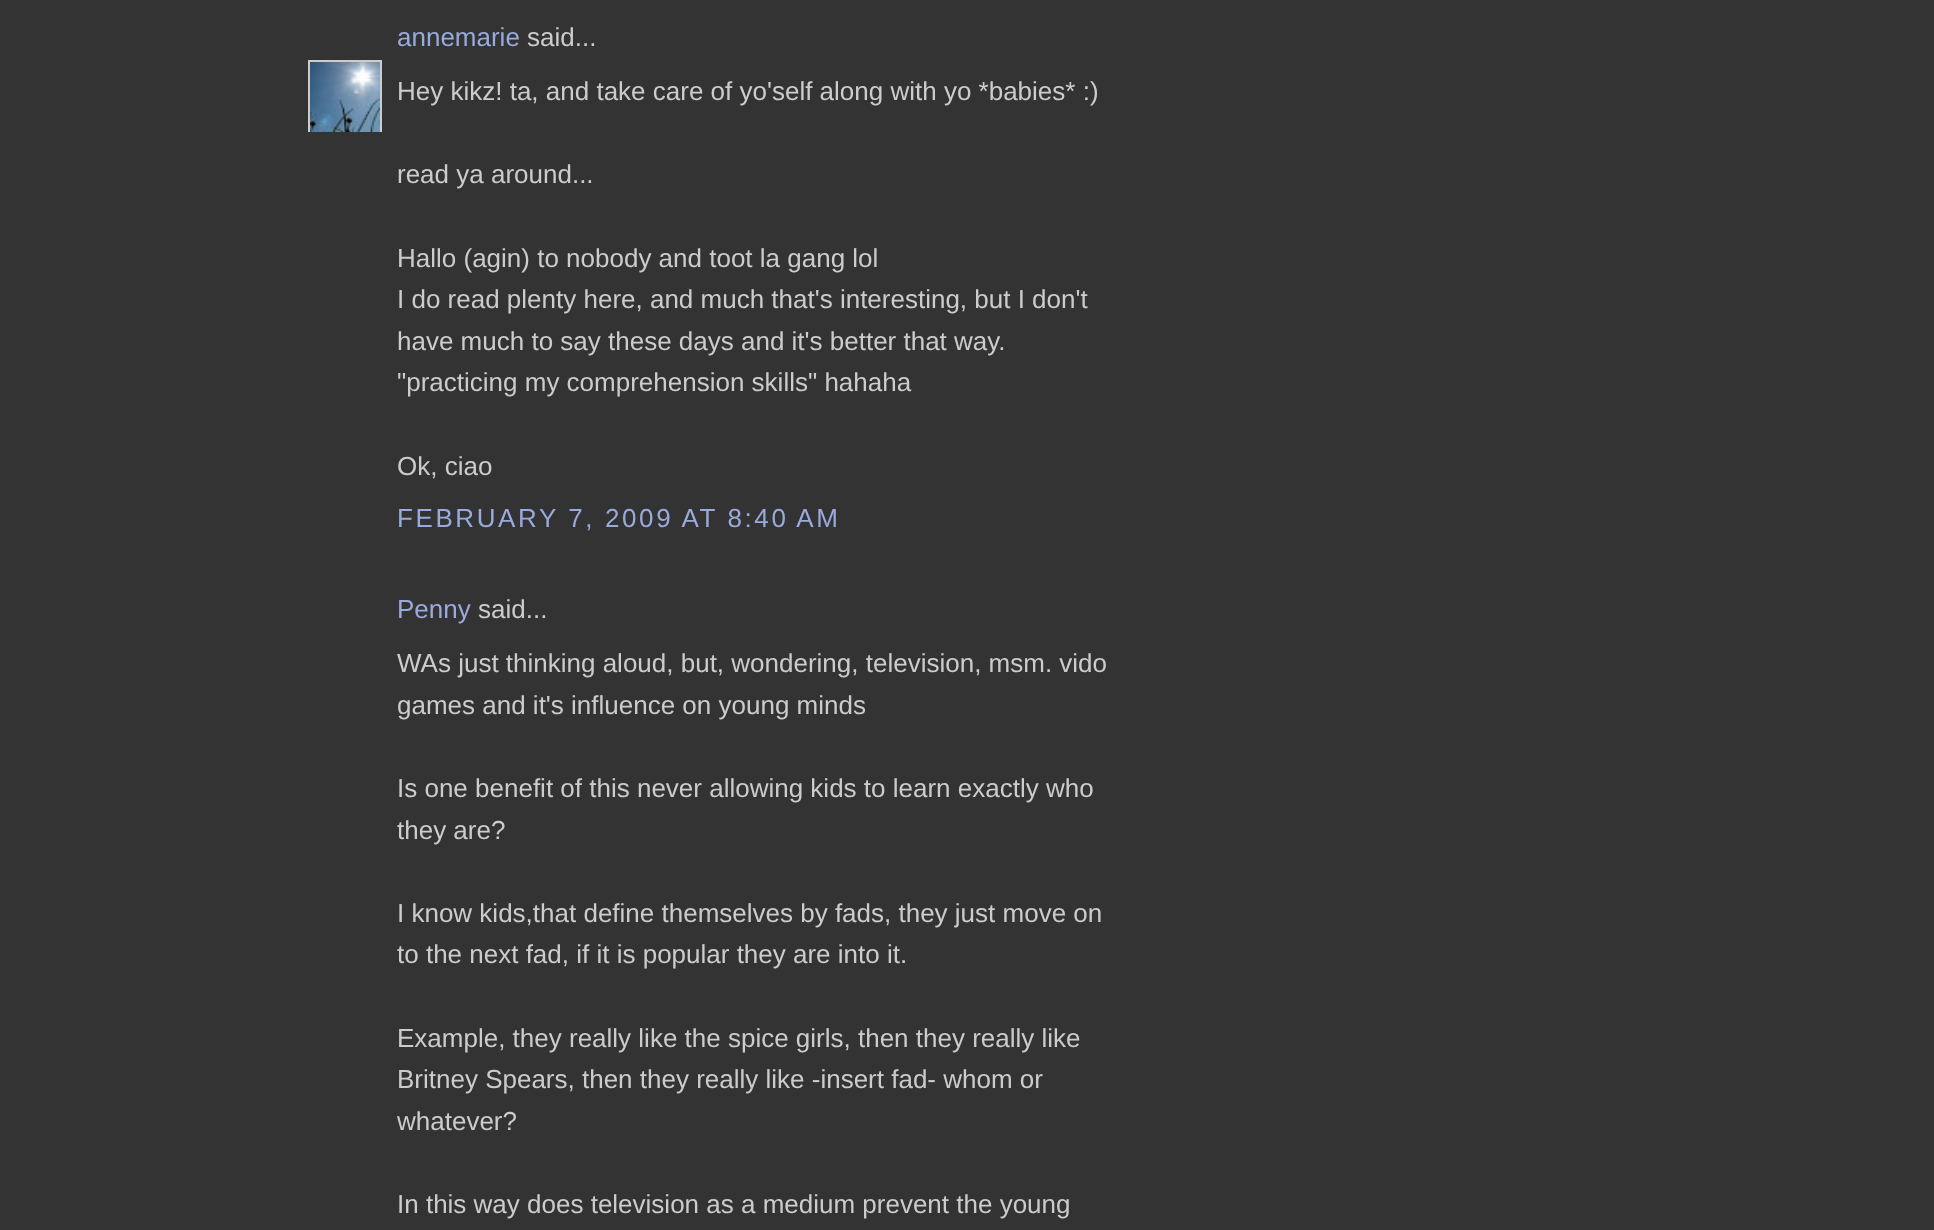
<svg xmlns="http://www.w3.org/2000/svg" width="1934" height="1230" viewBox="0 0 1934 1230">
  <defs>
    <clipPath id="clip1"><rect x="308" y="60" width="74" height="72"/></clipPath>
  </defs>
  <rect width="100%" height="100%" fill="rgb(51,51,51)"/>
  <text x="397" y="46" font-family="Liberation Sans" font-size="26" fill="rgb(153,170,221)">annemarie</text>
  <text x="527" y="46" font-family="Liberation Sans" font-size="26" fill="rgb(204,204,204)">said...</text>
  <g clip-path="url(#clip1)">
    <rect x="309" y="61" width="72" height="72" fill="none" stroke="rgb(204,204,204)" stroke-width="2"/>
  </g>
  <image x="310" y="62" width="70" height="70" href="pic1.png"/>
  <g font-family="Liberation Sans" font-size="26" fill="rgb(204,204,204)">
    <text x="397" y="100">Hey kikz! ta, and take care of yo'self along with yo *babies* :)</text>
    <text x="397" y="183">read ya around...</text>
    <text>
      <tspan x="397" y="267">Hallo (agin) to nobody and toot la gang lol</tspan>
      <tspan x="397" y="308">I do read plenty here, and much that's interesting, but I don't</tspan>
      <tspan x="397" y="350">have much to say these days and it's better that way.</tspan>
      <tspan x="397" y="391">"practicing my comprehension skills" hahaha</tspan>
    </text>
    <text x="397" y="475">Ok, ciao</text>
  </g>
  <text x="397" y="527" font-family="Liberation Sans" font-size="26" letter-spacing="2.6" fill="rgb(153,170,221)">FEBRUARY 7, 2009 AT 8:40 AM</text>
  <text x="397" y="618" font-family="Liberation Sans" font-size="26" fill="rgb(153,170,221)">Penny</text>
  <g font-family="Liberation Sans" font-size="26" fill="rgb(204,204,204)">
    <text x="478" y="618">said...</text>
    <text>
      <tspan x="397" y="672">WAs just thinking aloud, but, wondering, television, msm. vido</tspan>
      <tspan x="397" y="714">games and it's influence on young minds</tspan>
    </text>
    <text>
      <tspan x="397" y="797">Is one benefit of this never allowing kids to learn exactly who</tspan>
      <tspan x="397" y="839">they are?</tspan>
    </text>
    <text>
      <tspan x="397" y="922">I know kids,that define themselves by fads, they just move on</tspan>
      <tspan x="397" y="963">to the next fad, if it is popular they are into it.</tspan>
    </text>
    <text>
      <tspan x="397" y="1047">Example, they really like the spice girls, then they really like</tspan>
      <tspan x="397" y="1088">Britney Spears, then they really like -insert fad- whom or</tspan>
      <tspan x="397" y="1130">whatever?</tspan>
    </text>
    <text x="397" y="1213">In this way does television as a medium prevent the young</text>
  </g>
</svg>
